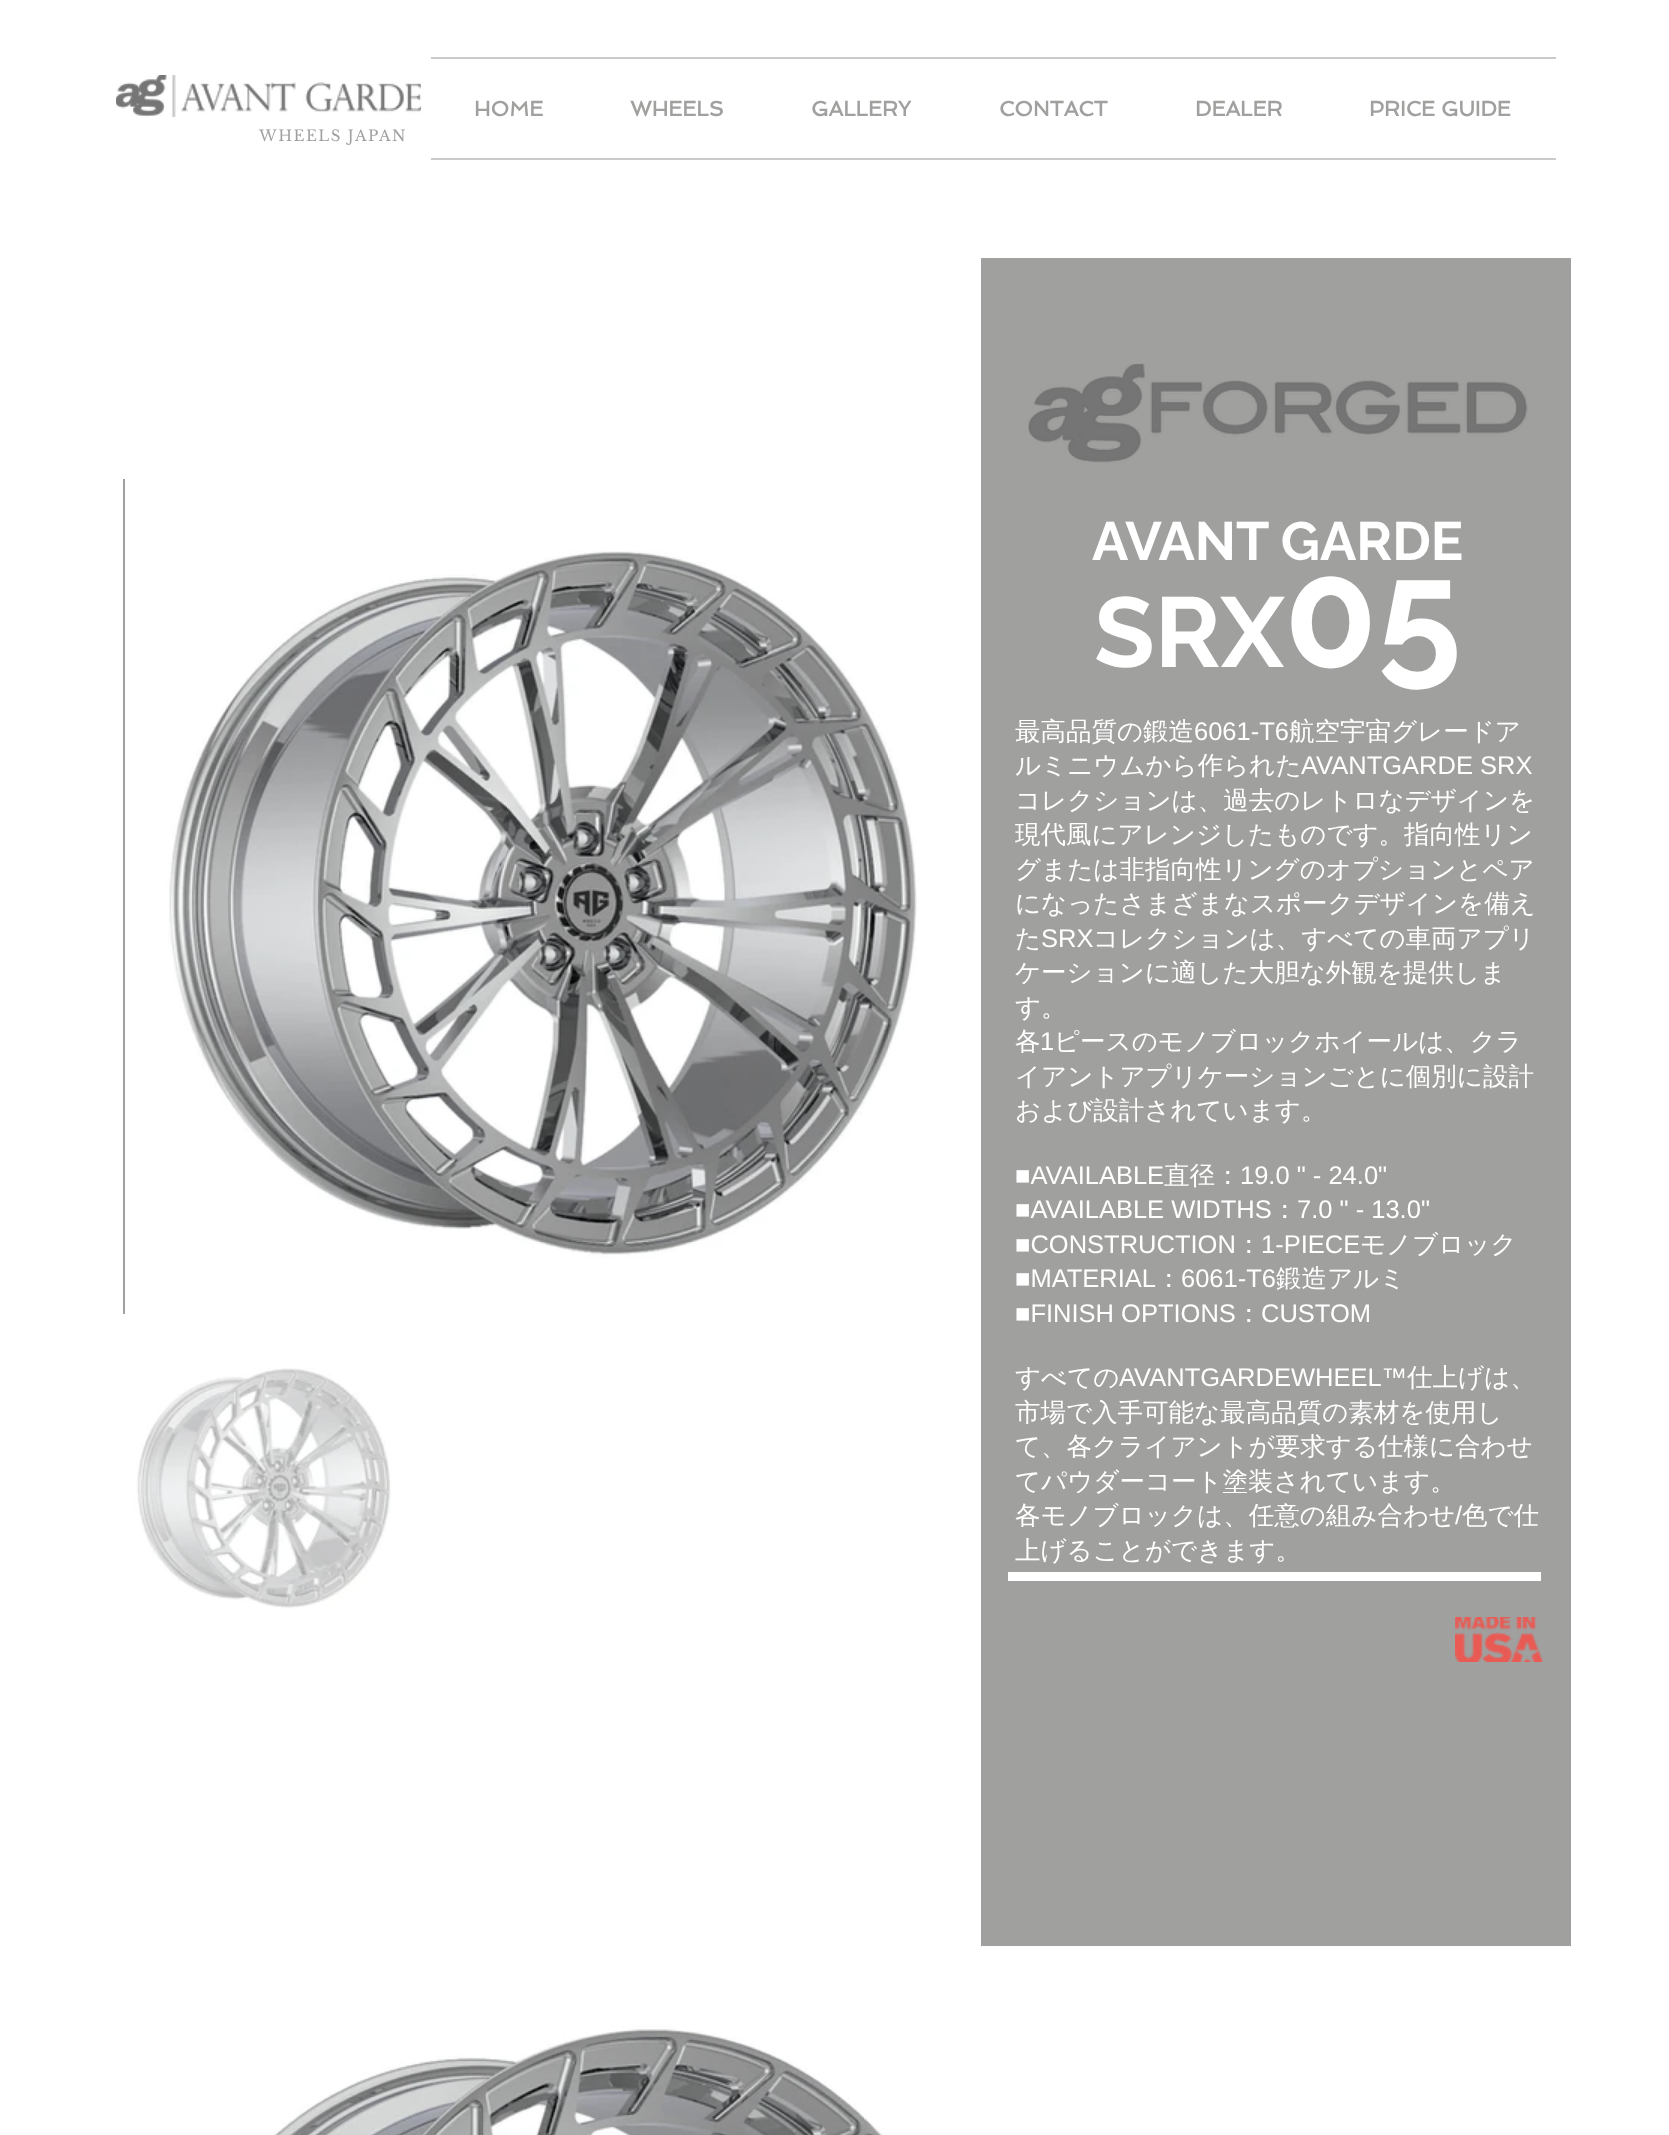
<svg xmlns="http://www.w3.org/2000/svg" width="1669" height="2135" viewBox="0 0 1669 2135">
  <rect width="100%" height="100%" fill="rgb(255,255,255)"/>
  <image x="116" y="75" width="306" height="42" href="pic1.png"/>
  <rect x="431" y="57" width="1125" height="2" fill="rgb(202,202,202)"/>
  <rect x="431" y="158" width="1125" height="2" fill="rgb(202,202,202)"/>
  <g font-family="Spinnaker" font-size="21" font-weight="bold" fill="rgb(160,160,159)">
    <text x="474" y="116">HOME</text>
    <text x="630" y="116">WHEELS</text>
    <text x="811" y="116">GALLERY</text>
    <text x="999" y="116">CONTACT</text>
    <text x="1195" y="116">DEALER</text>
    <text x="1369" y="116">PRICE GUIDE</text>
  </g>
  <text x="259" y="141" font-family="Libre Baskerville" font-size="15" letter-spacing="1.5" fill="rgb(160,160,159)">WHEELS JAPAN</text>
  <rect x="123" y="479" width="2" height="835" fill="rgb(160,160,159)"/>
  <image x="125" y="479" width="834" height="835" href="pic2.png"/>
  <image x="134" y="1368" width="258" height="241" href="pic3.png"/>
  <rect x="981" y="258" width="590" height="1688" fill="rgb(160,160,159)"/>
  <image x="1028" y="363" width="500" height="100" href="pic4.png"/>
  <text x="1092" y="560" font-family="Raleway" font-size="54" font-weight="bold" fill="rgb(255,255,255)">AVANT GARDE</text>
  <text x="1094" y="667" font-family="Raleway" font-size="99" font-weight="bold" fill="rgb(255,255,255)">SRX</text>
  <text x="1284" y="667" font-family="Raleway" font-size="152" font-weight="bold" fill="rgb(255,255,255)">05</text>
  <text x="1015" y="740" font-family="WenQuanYi Zen Hei" font-size="25.5" font-weight="500" fill="rgb(255,255,255)">最高品質の鍛造</text>
  <text x="1194" y="740" font-family="Liberation Sans" font-size="25.5" fill="rgb(255,255,255)">6061-T6</text>
  <g font-family="WenQuanYi Zen Hei" font-size="25.5" font-weight="500" fill="rgb(255,255,255)">
    <text x="1289" y="740">航空宇宙グレードア</text>
    <text x="1015" y="774">ルミニウムから作られた</text>
  </g>
  <text x="1301" y="774" font-family="Liberation Sans" font-size="25.5" fill="rgb(255,255,255)">AVANTGARDE SRX</text>
  <g font-family="WenQuanYi Zen Hei" font-size="25.5" font-weight="500" fill="rgb(255,255,255)">
    <text>
      <tspan x="1015" y="809">コレクションは、過去のレトロなデザインを</tspan>
      <tspan x="1015" y="843">現代風にアレンジしたものです。指向性リン</tspan>
      <tspan x="1015" y="878">グまたは非指向性リングのオプションとペア</tspan>
      <tspan x="1015" y="912">になったさまざまなスポークデザインを備え</tspan>
      <tspan x="1015" y="947">た</tspan>
    </text>
  </g>
  <text x="1041" y="947" font-family="Liberation Sans" font-size="25.5" fill="rgb(255,255,255)">SRX</text>
  <g font-family="WenQuanYi Zen Hei" font-size="25.5" font-weight="500" fill="rgb(255,255,255)">
    <text x="1093" y="947">コレクションは、すべての車両アプリ</text>
    <text>
      <tspan x="1015" y="981">ケーションに適した大胆な外観を提供しま</tspan>
      <tspan x="1015" y="1016">す。</tspan>
      <tspan x="1015" y="1050">各</tspan>
    </text>
  </g>
  <text x="1040" y="1050" font-family="Liberation Sans" font-size="25.5" fill="rgb(255,255,255)">1</text>
  <g font-family="WenQuanYi Zen Hei" font-size="25.5" font-weight="500" fill="rgb(255,255,255)">
    <text x="1054" y="1050">ピースのモノブロックホイールは、クラ</text>
    <text>
      <tspan x="1015" y="1085">イアントアプリケーションごとに個別に設計</tspan>
      <tspan x="1015" y="1119">および設計されています。</tspan>
    </text>
  </g>
  <text x="1015" y="1184" font-family="Liberation Sans" font-size="25.5" fill="rgb(255,255,255)">■AVAILABLE</text>
  <text x="1164" y="1184" font-family="WenQuanYi Zen Hei" font-size="25.5" font-weight="500" fill="rgb(255,255,255)">直径：</text>
  <g font-family="Liberation Sans" font-size="25.5" fill="rgb(255,255,255)">
    <text x="1240" y="1184">19.0 " - 24.0"</text>
    <text x="1015" y="1218">■AVAILABLE WIDTHS</text>
  </g>
  <text x="1272" y="1218" font-family="WenQuanYi Zen Hei" font-size="25.5" font-weight="500" fill="rgb(255,255,255)">：</text>
  <g font-family="Liberation Sans" font-size="25.5" fill="rgb(255,255,255)">
    <text x="1297" y="1218">7.0 " - 13.0"</text>
    <text x="1015" y="1253">■CONSTRUCTION</text>
  </g>
  <text x="1236" y="1253" font-family="WenQuanYi Zen Hei" font-size="25.5" font-weight="500" fill="rgb(255,255,255)">：</text>
  <text x="1261" y="1253" font-family="Liberation Sans" font-size="25.5" fill="rgb(255,255,255)">1-PIECE</text>
  <text x="1360" y="1253" font-family="WenQuanYi Zen Hei" font-size="25.5" font-weight="500" fill="rgb(255,255,255)">モノブロック</text>
  <text x="1015" y="1287" font-family="Liberation Sans" font-size="25.5" fill="rgb(255,255,255)">■MATERIAL</text>
  <text x="1156" y="1287" font-family="WenQuanYi Zen Hei" font-size="25.5" font-weight="500" fill="rgb(255,255,255)">：</text>
  <text x="1181" y="1287" font-family="Liberation Sans" font-size="25.5" fill="rgb(255,255,255)">6061-T6</text>
  <text x="1276" y="1287" font-family="WenQuanYi Zen Hei" font-size="25.5" font-weight="500" fill="rgb(255,255,255)">鍛造アルミ</text>
  <text x="1015" y="1322" font-family="Liberation Sans" font-size="25.5" fill="rgb(255,255,255)">■FINISH OPTIONS</text>
  <text x="1236" y="1322" font-family="WenQuanYi Zen Hei" font-size="25.5" font-weight="500" fill="rgb(255,255,255)">：</text>
  <text x="1261" y="1322" font-family="Liberation Sans" font-size="25.5" fill="rgb(255,255,255)">CUSTOM</text>
  <text x="1015" y="1386" font-family="WenQuanYi Zen Hei" font-size="25.5" font-weight="500" fill="rgb(255,255,255)">すべての</text>
  <text x="1119" y="1386" font-family="Liberation Sans" font-size="25.5" fill="rgb(255,255,255)">AVANTGARDEWHEEL™</text>
  <g font-family="WenQuanYi Zen Hei" font-size="25.5" font-weight="500" fill="rgb(255,255,255)">
    <text x="1407" y="1386">仕上げは、</text>
    <text>
      <tspan x="1015" y="1421">市場で入手可能な最高品質の素材を使用し</tspan>
      <tspan x="1015" y="1455">て、各クライアントが要求する仕様に合わせ</tspan>
      <tspan x="1015" y="1490">てパウダーコート塗装されています。</tspan>
      <tspan x="1015" y="1524">各モノブロックは、任意の組み合わせ</tspan>
    </text>
  </g>
  <text x="1455" y="1524" font-family="Liberation Sans" font-size="25.5" fill="rgb(255,255,255)">/</text>
  <g font-family="WenQuanYi Zen Hei" font-size="25.5" font-weight="500" fill="rgb(255,255,255)">
    <text x="1462" y="1524">色で仕</text>
    <text x="1015" y="1559">上げることができます。</text>
  </g>
  <rect x="1008" y="1572" width="533" height="9" fill="rgb(255,255,255)"/>
  <image x="1455" y="1617" width="88" height="45" href="pic5.png"/>
  <image x="108" y="1955" width="923" height="180" href="pic6.png"/>
</svg>
